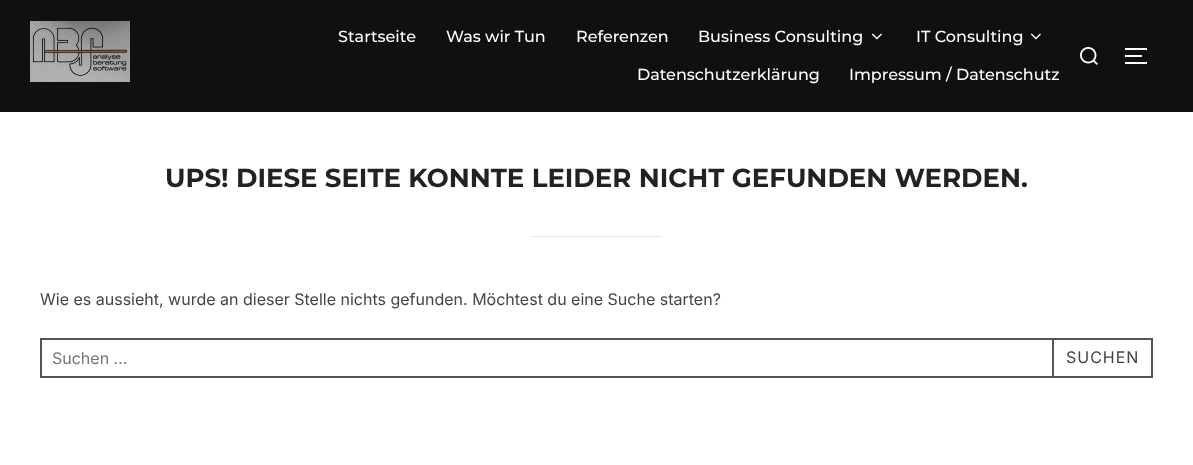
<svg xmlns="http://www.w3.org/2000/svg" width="1193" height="465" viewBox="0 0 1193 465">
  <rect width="100%" height="100%" fill="rgb(255,255,255)"/>
  <rect x="0" y="0" width="1193" height="112" fill="rgb(16,16,16)"/>
  <image x="30" y="21" width="100" height="61" href="pic1.png"/>
  <g font-family="Montserrat" font-size="16" font-weight="500" fill="rgb(255,255,255)">
    <text x="338" y="42">Startseite</text>
    <text x="446" y="42">Was wir Tun</text>
    <text x="576" y="42">Referenzen</text>
    <text x="698" y="42">Business Consulting</text>
  </g>
  <image x="871" y="33" width="11" height="7" href="pic2.png"/>
  <text x="916" y="42" font-family="Montserrat" font-size="16" font-weight="500" fill="rgb(255,255,255)">IT Consulting</text>
  <image x="1030" y="33" width="11" height="7" href="pic2.png"/>
  <g font-family="Montserrat" font-size="16" font-weight="500" fill="rgb(255,255,255)">
    <text x="637" y="80">Datenschutzerklärung</text>
    <text x="849" y="80">Impressum / Datenschutz</text>
  </g>
  <image x="1080" y="47" width="18" height="18" href="pic3.png"/>
  <rect x="1125" y="48" width="22" height="2" fill="rgb(255,255,255)"/>
  <rect x="1125" y="55" width="17" height="2" fill="rgb(255,255,255)"/>
  <rect x="1125" y="62" width="22" height="2" fill="rgb(255,255,255)"/>
  <text x="165" y="187" font-family="Montserrat" font-size="26" font-weight="bold" fill="rgb(34,34,34)">UPS! DIESE SEITE KONNTE LEIDER NICHT GEFUNDEN WERDEN.</text>
  <rect x="532" y="236" width="130" height="1" fill="rgb(230,230,230)"/>
  <text x="40" y="305" font-family="Inter" font-size="16" fill="rgb(68,68,68)">Wie es aussieht, wurde an dieser Stelle nichts gefunden. Möchtest du eine Suche starten?</text>
  <rect x="41" y="339" width="1111" height="38" fill="none" stroke="rgb(86,85,85)" stroke-width="2"/>
  <text x="52" y="364" font-family="Inter" font-size="16" fill="rgb(117,117,117)">Suchen …</text>
  <rect x="1053" y="339" width="99" height="38" fill="none" stroke="rgb(86,85,85)" stroke-width="2"/>
  <text x="1066" y="363" font-family="Inter" font-size="16" letter-spacing="1" fill="rgb(68,68,68)">SUCHEN</text>
</svg>
